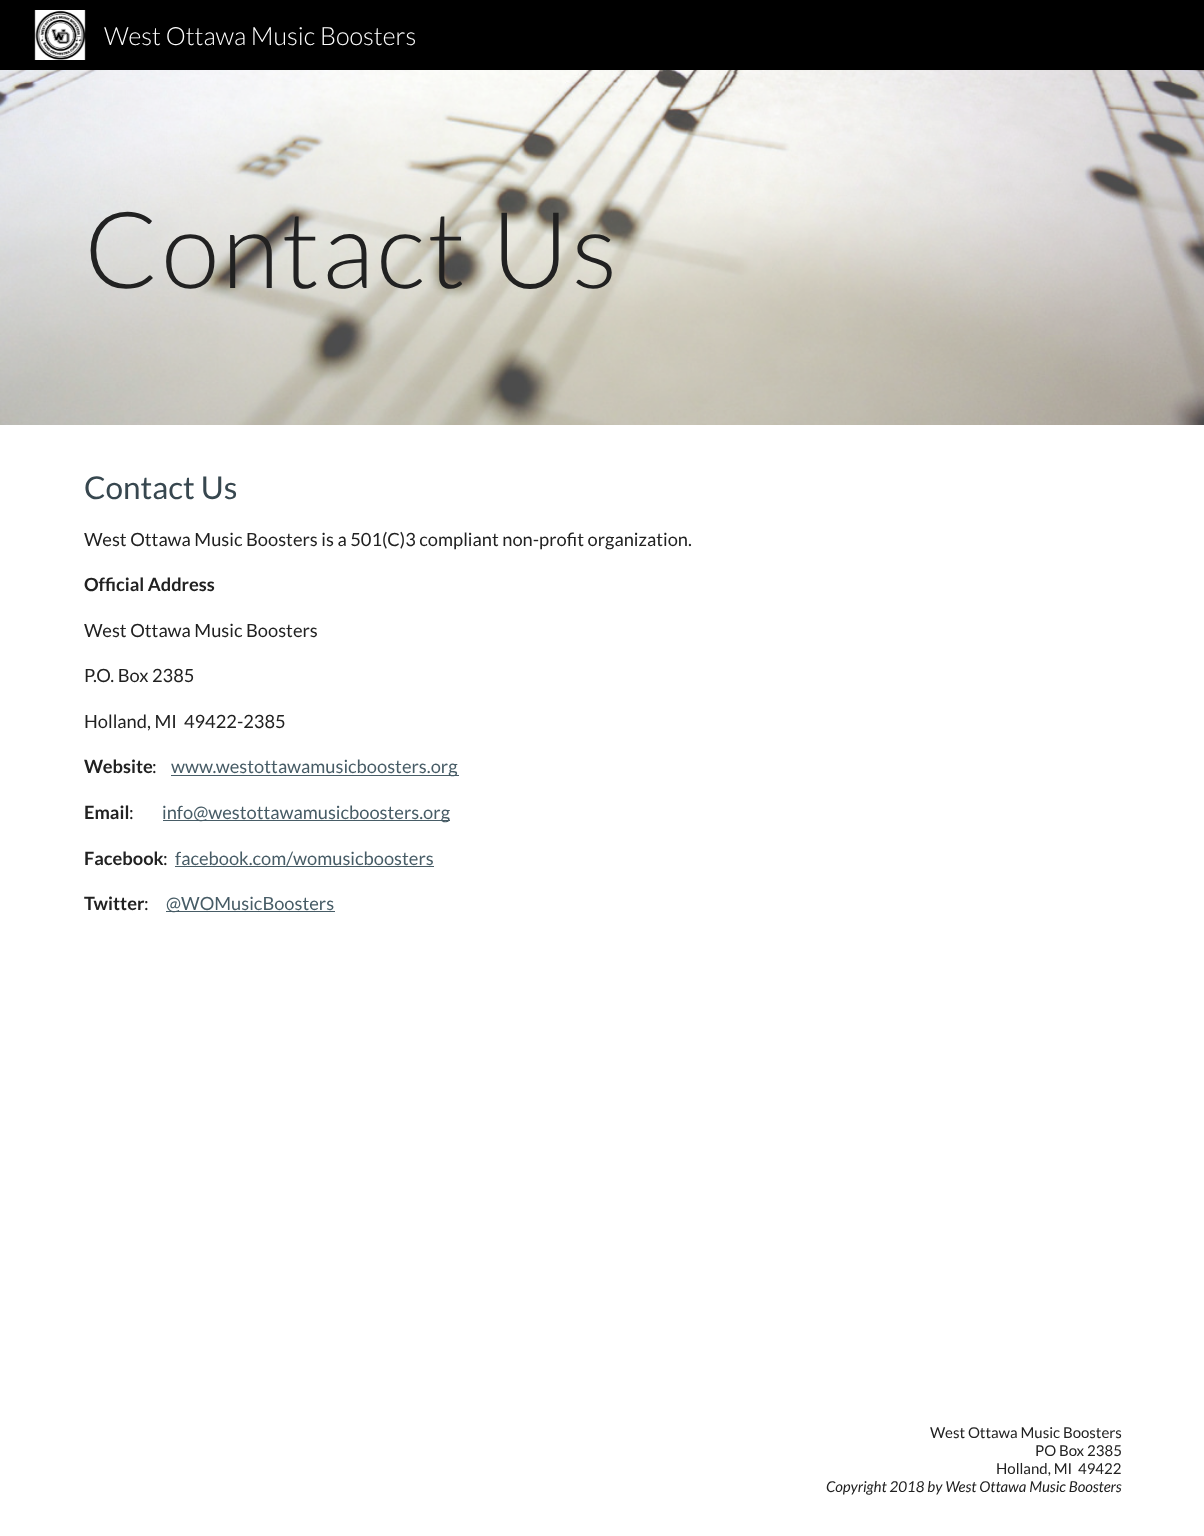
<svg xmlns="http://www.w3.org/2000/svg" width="1204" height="1536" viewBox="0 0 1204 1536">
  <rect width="100%" height="100%" fill="rgb(255,255,255)"/>
  <rect x="0" y="0" width="1204" height="70" fill="rgb(0,0,0)"/>
  <image x="34" y="10" width="52" height="50" href="pic1.png"/>
  <text x="104" y="45" font-family="Lato" font-size="25" font-weight="300" fill="rgb(255,255,255)">West Ottawa Music Boosters</text>
  <image x="0" y="70" width="1204" height="355" href="pic2.png"/>
  <text x="84" y="288" font-family="Lato" font-size="106.5" font-weight="300" letter-spacing="2.5" fill="rgb(33,33,33)">Contact Us</text>
  <text x="84" y="499" font-family="Lato" font-size="31.5" fill="rgb(55,71,79)">Contact Us</text>
  <text x="84" y="546" font-family="Lato" font-size="18.3" fill="rgb(33,33,33)">West Ottawa Music Boosters is a 501(C)3 compliant non-profit organization.</text>
  <text x="84" y="591" font-family="Lato" font-size="18.3" font-weight="bold" fill="rgb(33,33,33)">Official Address</text>
  <g font-family="Lato" font-size="18.3" fill="rgb(33,33,33)">
    <text x="84" y="637">West Ottawa Music Boosters</text>
    <text x="84" y="682">P.O. Box 2385</text>
    <text x="84" y="728" xml:space="preserve">Holland, MI  49422-2385</text>
  </g>
  <text x="84" y="773" font-family="Lato" font-size="18.3" font-weight="bold" fill="rgb(33,33,33)">Website</text>
  <text x="152" y="773" font-family="Lato" font-size="18.3" fill="rgb(33,33,33)">:</text>
  <rect x="171" y="775" width="288" height="1" fill="rgb(71,92,102)"/>
  <text x="171" y="773" font-family="Lato" font-size="18.3" fill="rgb(71,92,102)">www.westottawamusicboosters.org</text>
  <text x="84" y="819" font-family="Lato" font-size="18.3" font-weight="bold" fill="rgb(33,33,33)">Email</text>
  <text x="129" y="819" font-family="Lato" font-size="18.3" fill="rgb(33,33,33)">:</text>
  <rect x="163" y="820" width="287" height="1" fill="rgb(71,92,102)"/>
  <text x="162" y="819" font-family="Lato" font-size="18.3" fill="rgb(71,92,102)">info@westottawamusicboosters.org</text>
  <text x="84" y="865" font-family="Lato" font-size="18.3" font-weight="bold" fill="rgb(33,33,33)">Facebook</text>
  <text x="163" y="865" font-family="Lato" font-size="18.3" fill="rgb(33,33,33)">:</text>
  <text x="175" y="865" font-family="Lato" font-size="18.3" fill="rgb(71,92,102)">facebook.com/womusicboosters</text>
  <rect x="175" y="866" width="259" height="1" fill="rgb(71,92,102)"/>
  <text x="84" y="910" font-family="Lato" font-size="18.3" font-weight="bold" fill="rgb(33,33,33)">Twitter</text>
  <text x="144" y="910" font-family="Lato" font-size="18.3" fill="rgb(33,33,33)">:</text>
  <rect x="166" y="911" width="169" height="1" fill="rgb(71,92,102)"/>
  <text x="166" y="910" font-family="Lato" font-size="18.3" fill="rgb(71,92,102)">@WOMusicBoosters</text>
  <g font-family="Lato" font-size="15" fill="rgb(33,33,33)">
    <text x="930" y="1438">West Ottawa Music Boosters</text>
    <text x="1035" y="1456">PO Box 2385</text>
    <text x="996" y="1474" xml:space="preserve">Holland, MI  49422</text>
  </g>
  <text x="826" y="1492" font-family="Lato" font-size="15" font-style="italic" fill="rgb(33,33,33)">Copyright 2018 by West Ottawa Music Boosters</text>
</svg>
